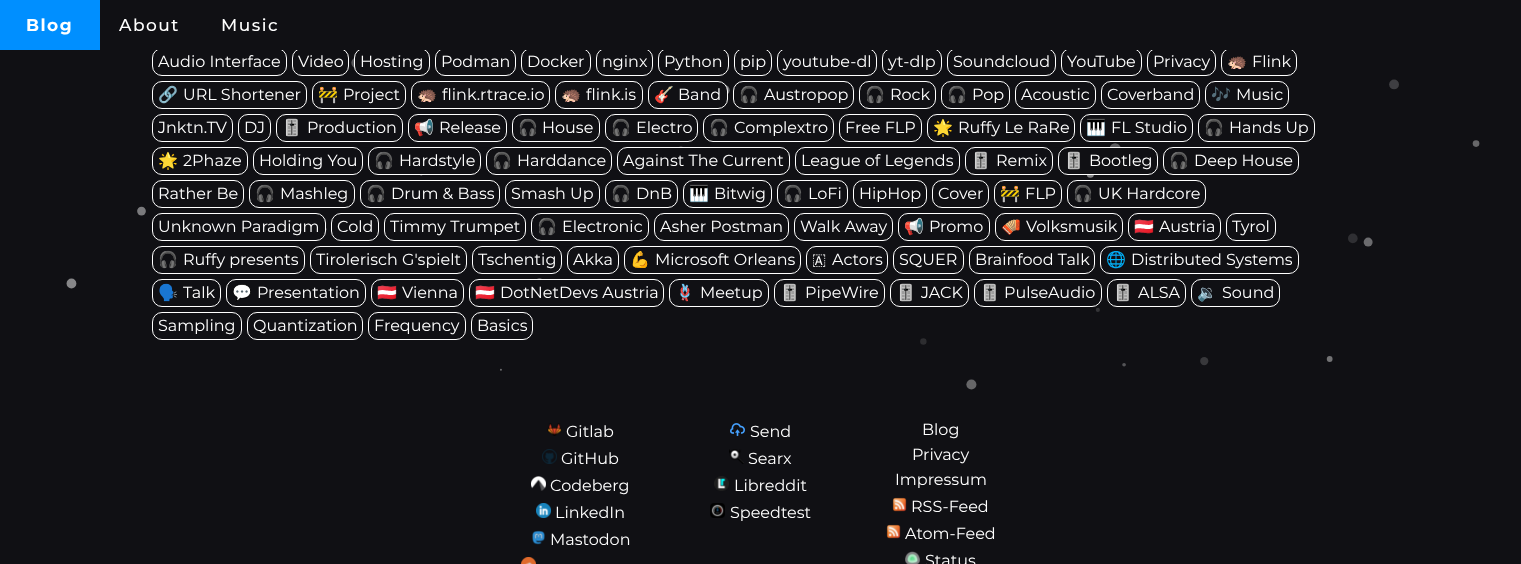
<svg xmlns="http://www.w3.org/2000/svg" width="1521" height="564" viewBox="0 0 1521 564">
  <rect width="100%" height="100%" fill="rgb(16,16,20)"/>
  <image x="66" y="57" width="1414" height="333" href="pic1.png"/>
  <rect x="152.5" y="48.5" width="134" height="27" rx="9.5" fill="rgb(16,16,20)" stroke="rgb(255,255,255)"/>
  <rect x="292.5" y="48.5" width="56" height="27" rx="9.5" fill="none" stroke="rgb(255,255,255)"/>
  <rect x="354.5" y="48.5" width="75" height="27" rx="9.5" fill="rgb(16,16,20)" stroke="rgb(255,255,255)"/>
  <rect x="435.5" y="48.5" width="80" height="27" rx="9.5" fill="none" stroke="rgb(255,255,255)"/>
  <rect x="521.5" y="48.5" width="69" height="27" rx="9.5" fill="none" stroke="rgb(255,255,255)"/>
  <rect x="596.5" y="48.5" width="56" height="27" rx="9.5" fill="none" stroke="rgb(255,255,255)"/>
  <rect x="658.5" y="48.5" width="70" height="27" rx="9.5" fill="none" stroke="rgb(255,255,255)"/>
  <rect x="734.5" y="48.5" width="37" height="27" rx="9.5" fill="none" stroke="rgb(255,255,255)"/>
  <rect x="777.5" y="48.5" width="99" height="27" rx="9.5" fill="none" stroke="rgb(255,255,255)"/>
  <rect x="882.5" y="48.5" width="59" height="27" rx="9.5" fill="none" stroke="rgb(255,255,255)"/>
  <rect x="947.5" y="48.5" width="108" height="27" rx="9.5" fill="none" stroke="rgb(255,255,255)"/>
  <rect x="1061.5" y="48.5" width="80" height="27" rx="9.5" fill="none" stroke="rgb(255,255,255)"/>
  <rect x="1147.5" y="48.5" width="68" height="27" rx="9.5" fill="none" stroke="rgb(255,255,255)"/>
  <rect x="1221.5" y="48.5" width="75" height="27" rx="9.5" fill="none" stroke="rgb(255,255,255)"/>
  <rect x="156" y="48" width="1137" height="2" fill="rgb(16,16,20)"/>
  <rect x="0" y="0" width="100" height="50" fill="rgb(0,143,255)"/>
  <text x="26" y="31" font-family="Montserrat" font-size="17" font-weight="bold" letter-spacing="1.5" fill="rgb(255,255,255)">Blog</text>
  <g font-family="Montserrat" font-size="17" font-weight="500" letter-spacing="1.5" fill="rgb(255,255,255)">
    <text x="119" y="31">About</text>
    <text x="221" y="31">Music</text>
  </g>
  <g font-family="Montserrat" font-size="16" fill="rgb(255,255,255)">
    <text x="158" y="67">Audio Interface</text>
    <text x="298" y="67">Video</text>
    <text x="360" y="67">Hosting</text>
    <text x="441" y="67">Podman</text>
    <text x="527" y="67">Docker</text>
    <text x="602" y="67">nginx</text>
    <text x="664" y="67">Python</text>
    <text x="740" y="67">pip</text>
    <text x="783" y="67">youtube-dl</text>
    <text x="888" y="67">yt-dlp</text>
    <text x="953" y="67">Soundcloud</text>
    <text x="1067" y="67">YouTube</text>
    <text x="1153" y="67">Privacy</text>
  </g>
  <text x="1227" y="67" font-family="Noto Color Emoji" font-size="16" fill="rgb(255,255,255)">🦔</text>
  <text x="1252" y="67" font-family="Montserrat" font-size="16" fill="rgb(255,255,255)">Flink</text>
  <rect x="152.5" y="81.5" width="154" height="27" rx="9.5" fill="none" stroke="rgb(255,255,255)"/>
  <text x="158" y="100" font-family="Noto Color Emoji" font-size="16" fill="rgb(255,255,255)">🔗</text>
  <text x="183" y="100" font-family="Montserrat" font-size="16" fill="rgb(255,255,255)">URL Shortener</text>
  <rect x="312.5" y="81.5" width="93" height="27" rx="9.5" fill="none" stroke="rgb(255,255,255)"/>
  <text x="318" y="100" font-family="Noto Color Emoji" font-size="16" fill="rgb(255,255,255)">🚧</text>
  <text x="343" y="100" font-family="Montserrat" font-size="16" fill="rgb(255,255,255)">Project</text>
  <rect x="411.5" y="81.5" width="138" height="27" rx="9.5" fill="none" stroke="rgb(255,255,255)"/>
  <text x="417" y="100" font-family="Noto Color Emoji" font-size="16" fill="rgb(255,255,255)">🦔</text>
  <text x="442" y="100" font-family="Montserrat" font-size="16" fill="rgb(255,255,255)">flink.rtrace.io</text>
  <rect x="555.5" y="81.5" width="87" height="27" rx="9.5" fill="none" stroke="rgb(255,255,255)"/>
  <text x="561" y="100" font-family="Noto Color Emoji" font-size="16" fill="rgb(255,255,255)">🦔</text>
  <text x="586" y="100" font-family="Montserrat" font-size="16" fill="rgb(255,255,255)">flink.is</text>
  <rect x="648.5" y="81.5" width="79" height="27" rx="9.5" fill="rgb(16,16,20)" stroke="rgb(255,255,255)"/>
  <text x="654" y="100" font-family="Noto Color Emoji" font-size="16" fill="rgb(255,255,255)">🎸</text>
  <text x="678" y="100" font-family="Montserrat" font-size="16" fill="rgb(255,255,255)">Band</text>
  <rect x="733.5" y="81.5" width="120" height="27" rx="9.5" fill="none" stroke="rgb(255,255,255)"/>
  <text x="739" y="100" font-family="Noto Color Emoji" font-size="16" fill="rgb(255,255,255)">🎧</text>
  <text x="764" y="100" font-family="Montserrat" font-size="16" fill="rgb(255,255,255)">Austropop</text>
  <rect x="859.5" y="81.5" width="76" height="27" rx="9.5" fill="none" stroke="rgb(255,255,255)"/>
  <text x="865" y="100" font-family="Noto Color Emoji" font-size="16" fill="rgb(255,255,255)">🎧</text>
  <text x="890" y="100" font-family="Montserrat" font-size="16" fill="rgb(255,255,255)">Rock</text>
  <rect x="941.5" y="81.5" width="68" height="27" rx="9.5" fill="none" stroke="rgb(255,255,255)"/>
  <text x="947" y="100" font-family="Noto Color Emoji" font-size="16" fill="rgb(255,255,255)">🎧</text>
  <text x="972" y="100" font-family="Montserrat" font-size="16" fill="rgb(255,255,255)">Pop</text>
  <rect x="1015.5" y="81.5" width="80" height="27" rx="9.5" fill="none" stroke="rgb(255,255,255)"/>
  <text x="1021" y="100" font-family="Montserrat" font-size="16" fill="rgb(255,255,255)">Acoustic</text>
  <rect x="1101.5" y="81.5" width="98" height="27" rx="9.5" fill="none" stroke="rgb(255,255,255)"/>
  <text x="1107" y="100" font-family="Montserrat" font-size="16" fill="rgb(255,255,255)">Coverband</text>
  <rect x="1205.5" y="81.5" width="83" height="27" rx="9.5" fill="none" stroke="rgb(255,255,255)"/>
  <text x="1211" y="100" font-family="Noto Color Emoji" font-size="16" fill="rgb(255,255,255)">🎶</text>
  <text x="1236" y="100" font-family="Montserrat" font-size="16" fill="rgb(255,255,255)">Music</text>
  <rect x="152.5" y="114.5" width="80" height="27" rx="9.5" fill="none" stroke="rgb(255,255,255)"/>
  <text x="158" y="133" font-family="Montserrat" font-size="16" fill="rgb(255,255,255)">Jnktn.TV</text>
  <rect x="238.5" y="114.5" width="32" height="27" rx="9.5" fill="none" stroke="rgb(255,255,255)"/>
  <text x="244" y="133" font-family="Montserrat" font-size="16" fill="rgb(255,255,255)">DJ</text>
  <rect x="276.5" y="114.5" width="126" height="27" rx="9.5" fill="none" stroke="rgb(255,255,255)"/>
  <text x="282" y="133" font-family="Noto Color Emoji" font-size="16" fill="rgb(255,255,255)">🎚️</text>
  <text x="307" y="133" font-family="Montserrat" font-size="16" fill="rgb(255,255,255)">Production</text>
  <rect x="408.5" y="114.5" width="98" height="27" rx="9.5" fill="none" stroke="rgb(255,255,255)"/>
  <text x="414" y="133" font-family="Noto Color Emoji" font-size="16" fill="rgb(255,255,255)">📢</text>
  <text x="439" y="133" font-family="Montserrat" font-size="16" fill="rgb(255,255,255)">Release</text>
  <rect x="512.5" y="114.5" width="87" height="27" rx="9.5" fill="none" stroke="rgb(255,255,255)"/>
  <text x="518" y="133" font-family="Noto Color Emoji" font-size="16" fill="rgb(255,255,255)">🎧</text>
  <text x="542" y="133" font-family="Montserrat" font-size="16" fill="rgb(255,255,255)">House</text>
  <rect x="605.5" y="114.5" width="92" height="27" rx="9.5" fill="none" stroke="rgb(255,255,255)"/>
  <text x="611" y="133" font-family="Noto Color Emoji" font-size="16" fill="rgb(255,255,255)">🎧</text>
  <text x="636" y="133" font-family="Montserrat" font-size="16" fill="rgb(255,255,255)">Electro</text>
  <rect x="703.5" y="114.5" width="130" height="27" rx="9.5" fill="none" stroke="rgb(255,255,255)"/>
  <text x="709" y="133" font-family="Noto Color Emoji" font-size="16" fill="rgb(255,255,255)">🎧</text>
  <text x="734" y="133" font-family="Montserrat" font-size="16" fill="rgb(255,255,255)">Complextro</text>
  <rect x="839.5" y="114.5" width="82" height="27" rx="9.5" fill="none" stroke="rgb(255,255,255)"/>
  <text x="845" y="133" font-family="Montserrat" font-size="16" fill="rgb(255,255,255)">Free FLP</text>
  <rect x="927.5" y="114.5" width="147" height="27" rx="9.5" fill="none" stroke="rgb(255,255,255)"/>
  <text x="933" y="133" font-family="Noto Color Emoji" font-size="16" fill="rgb(255,255,255)">🌟</text>
  <text x="958" y="133" font-family="Montserrat" font-size="16" fill="rgb(255,255,255)">Ruffy Le RaRe</text>
  <rect x="1080.5" y="114.5" width="112" height="27" rx="9.5" fill="rgb(16,16,20)" stroke="rgb(255,255,255)"/>
  <text x="1086" y="133" font-family="Noto Color Emoji" font-size="16" fill="rgb(255,255,255)">🎹</text>
  <text x="1111" y="133" font-family="Montserrat" font-size="16" fill="rgb(255,255,255)">FL Studio</text>
  <rect x="1198.5" y="114.5" width="116" height="27" rx="9.5" fill="none" stroke="rgb(255,255,255)"/>
  <text x="1204" y="133" font-family="Noto Color Emoji" font-size="16" fill="rgb(255,255,255)">🎧</text>
  <text x="1229" y="133" font-family="Montserrat" font-size="16" fill="rgb(255,255,255)">Hands Up</text>
  <rect x="152.5" y="147.5" width="95" height="27" rx="9.5" fill="none" stroke="rgb(255,255,255)"/>
  <text x="158" y="166" font-family="Noto Color Emoji" font-size="16" fill="rgb(255,255,255)">🌟</text>
  <text x="183" y="166" font-family="Montserrat" font-size="16" fill="rgb(255,255,255)">2Phaze</text>
  <rect x="253.5" y="147.5" width="109" height="27" rx="9.5" fill="none" stroke="rgb(255,255,255)"/>
  <text x="259" y="166" font-family="Montserrat" font-size="16" fill="rgb(255,255,255)">Holding You</text>
  <rect x="368.5" y="147.5" width="112" height="27" rx="9.5" fill="rgb(16,16,20)" stroke="rgb(255,255,255)"/>
  <text x="374" y="166" font-family="Noto Color Emoji" font-size="16" fill="rgb(255,255,255)">🎧</text>
  <text x="399" y="166" font-family="Montserrat" font-size="16" fill="rgb(255,255,255)">Hardstyle</text>
  <rect x="486.5" y="147.5" width="125" height="27" rx="9.5" fill="none" stroke="rgb(255,255,255)"/>
  <text x="492" y="166" font-family="Noto Color Emoji" font-size="16" fill="rgb(255,255,255)">🎧</text>
  <text x="517" y="166" font-family="Montserrat" font-size="16" fill="rgb(255,255,255)">Harddance</text>
  <rect x="617.5" y="147.5" width="172" height="27" rx="9.5" fill="rgb(16,16,20)" stroke="rgb(255,255,255)"/>
  <text x="623" y="166" font-family="Montserrat" font-size="16" fill="rgb(255,255,255)">Against The Current</text>
  <rect x="795.5" y="147.5" width="164" height="27" rx="9.5" fill="none" stroke="rgb(255,255,255)"/>
  <text x="801" y="166" font-family="Montserrat" font-size="16" fill="rgb(255,255,255)">League of Legends</text>
  <rect x="965.5" y="147.5" width="87" height="27" rx="9.5" fill="none" stroke="rgb(255,255,255)"/>
  <text x="971" y="166" font-family="Noto Color Emoji" font-size="16" fill="rgb(255,255,255)">🎚️</text>
  <text x="996" y="166" font-family="Montserrat" font-size="16" fill="rgb(255,255,255)">Remix</text>
  <rect x="1058.5" y="147.5" width="99" height="27" rx="9.5" fill="rgb(16,16,20)" stroke="rgb(255,255,255)"/>
  <text x="1064" y="166" font-family="Noto Color Emoji" font-size="16" fill="rgb(255,255,255)">🎚️</text>
  <text x="1089" y="166" font-family="Montserrat" font-size="16" fill="rgb(255,255,255)">Bootleg</text>
  <rect x="1163.5" y="147.5" width="135" height="27" rx="9.5" fill="rgb(16,16,20)" stroke="rgb(255,255,255)"/>
  <text x="1169" y="166" font-family="Noto Color Emoji" font-size="16" fill="rgb(255,255,255)">🎧</text>
  <text x="1194" y="166" font-family="Montserrat" font-size="16" fill="rgb(255,255,255)">Deep House</text>
  <rect x="152.5" y="180.5" width="91" height="27" rx="9.5" fill="none" stroke="rgb(255,255,255)"/>
  <text x="158" y="199" font-family="Montserrat" font-size="16" fill="rgb(255,255,255)">Rather Be</text>
  <rect x="249.5" y="180.5" width="105" height="27" rx="9.5" fill="none" stroke="rgb(255,255,255)"/>
  <text x="255" y="199" font-family="Noto Color Emoji" font-size="16" fill="rgb(255,255,255)">🎧</text>
  <text x="280" y="199" font-family="Montserrat" font-size="16" fill="rgb(255,255,255)">Mashleg</text>
  <rect x="360.5" y="180.5" width="139" height="27" rx="9.5" fill="none" stroke="rgb(255,255,255)"/>
  <text x="366" y="199" font-family="Noto Color Emoji" font-size="16" fill="rgb(255,255,255)">🎧</text>
  <text x="391" y="199" font-family="Montserrat" font-size="16" fill="rgb(255,255,255)">Drum &amp; Bass</text>
  <rect x="505.5" y="180.5" width="94" height="27" rx="9.5" fill="none" stroke="rgb(255,255,255)"/>
  <text x="511" y="199" font-family="Montserrat" font-size="16" fill="rgb(255,255,255)">Smash Up</text>
  <rect x="605.5" y="180.5" width="72" height="27" rx="9.5" fill="none" stroke="rgb(255,255,255)"/>
  <text x="611" y="199" font-family="Noto Color Emoji" font-size="16" fill="rgb(255,255,255)">🎧</text>
  <text x="636" y="199" font-family="Montserrat" font-size="16" fill="rgb(255,255,255)">DnB</text>
  <rect x="683.5" y="180.5" width="88" height="27" rx="9.5" fill="none" stroke="rgb(255,255,255)"/>
  <text x="689" y="199" font-family="Noto Color Emoji" font-size="16" fill="rgb(255,255,255)">🎹</text>
  <text x="714" y="199" font-family="Montserrat" font-size="16" fill="rgb(255,255,255)">Bitwig</text>
  <rect x="777.5" y="180.5" width="70" height="27" rx="9.5" fill="none" stroke="rgb(255,255,255)"/>
  <text x="783" y="199" font-family="Noto Color Emoji" font-size="16" fill="rgb(255,255,255)">🎧</text>
  <text x="808" y="199" font-family="Montserrat" font-size="16" fill="rgb(255,255,255)">LoFi</text>
  <rect x="853.5" y="180.5" width="73" height="27" rx="9.5" fill="none" stroke="rgb(255,255,255)"/>
  <text x="859" y="199" font-family="Montserrat" font-size="16" fill="rgb(255,255,255)">HipHop</text>
  <rect x="932.5" y="180.5" width="56" height="27" rx="9.5" fill="none" stroke="rgb(255,255,255)"/>
  <text x="938" y="199" font-family="Montserrat" font-size="16" fill="rgb(255,255,255)">Cover</text>
  <rect x="994.5" y="180.5" width="67" height="27" rx="9.5" fill="none" stroke="rgb(255,255,255)"/>
  <text x="1000" y="199" font-family="Noto Color Emoji" font-size="16" fill="rgb(255,255,255)">🚧</text>
  <text x="1025" y="199" font-family="Montserrat" font-size="16" fill="rgb(255,255,255)">FLP</text>
  <rect x="1067.5" y="180.5" width="138" height="27" rx="9.5" fill="none" stroke="rgb(255,255,255)"/>
  <text x="1073" y="199" font-family="Noto Color Emoji" font-size="16" fill="rgb(255,255,255)">🎧</text>
  <text x="1098" y="199" font-family="Montserrat" font-size="16" fill="rgb(255,255,255)">UK Hardcore</text>
  <rect x="152.5" y="213.5" width="173" height="27" rx="9.5" fill="rgb(16,16,20)" stroke="rgb(255,255,255)"/>
  <text x="158" y="232" font-family="Montserrat" font-size="16" fill="rgb(255,255,255)">Unknown Paradigm</text>
  <rect x="331.5" y="213.5" width="47" height="27" rx="9.5" fill="none" stroke="rgb(255,255,255)"/>
  <text x="337" y="232" font-family="Montserrat" font-size="16" fill="rgb(255,255,255)">Cold</text>
  <rect x="384.5" y="213.5" width="141" height="27" rx="9.5" fill="none" stroke="rgb(255,255,255)"/>
  <text x="390" y="232" font-family="Montserrat" font-size="16" fill="rgb(255,255,255)">Timmy Trumpet</text>
  <rect x="531.5" y="213.5" width="117" height="27" rx="9.5" fill="none" stroke="rgb(255,255,255)"/>
  <text x="537" y="232" font-family="Noto Color Emoji" font-size="16" fill="rgb(255,255,255)">🎧</text>
  <text x="562" y="232" font-family="Montserrat" font-size="16" fill="rgb(255,255,255)">Electronic</text>
  <rect x="654.5" y="213.5" width="134" height="27" rx="9.5" fill="none" stroke="rgb(255,255,255)"/>
  <text x="660" y="232" font-family="Montserrat" font-size="16" fill="rgb(255,255,255)">Asher Postman</text>
  <rect x="794.5" y="213.5" width="98" height="27" rx="9.5" fill="none" stroke="rgb(255,255,255)"/>
  <text x="800" y="232" font-family="Montserrat" font-size="16" fill="rgb(255,255,255)">Walk Away</text>
  <rect x="898.5" y="213.5" width="91" height="27" rx="9.5" fill="rgb(16,16,20)" stroke="rgb(255,255,255)"/>
  <text x="904" y="232" font-family="Noto Color Emoji" font-size="16" fill="rgb(255,255,255)">📢</text>
  <text x="929" y="232" font-family="Montserrat" font-size="16" fill="rgb(255,255,255)">Promo</text>
  <rect x="995.5" y="213.5" width="127" height="27" rx="9.5" fill="none" stroke="rgb(255,255,255)"/>
  <text x="1001" y="232" font-family="Noto Color Emoji" font-size="16" fill="rgb(255,255,255)">🪗</text>
  <text x="1026" y="232" font-family="Montserrat" font-size="16" fill="rgb(255,255,255)">Volksmusik</text>
  <rect x="1128.5" y="213.5" width="92" height="27" rx="9.5" fill="none" stroke="rgb(255,255,255)"/>
  <text x="1134" y="232" font-family="Noto Color Emoji" font-size="16" fill="rgb(255,255,255)">🇦🇹</text>
  <text x="1159" y="232" font-family="Montserrat" font-size="16" fill="rgb(255,255,255)">Austria</text>
  <rect x="1226.5" y="213.5" width="49" height="27" rx="9.5" fill="none" stroke="rgb(255,255,255)"/>
  <text x="1232" y="232" font-family="Montserrat" font-size="16" fill="rgb(255,255,255)">Tyrol</text>
  <rect x="152.5" y="246.5" width="152" height="27" rx="9.5" fill="none" stroke="rgb(255,255,255)"/>
  <text x="158" y="265" font-family="Noto Color Emoji" font-size="16" fill="rgb(255,255,255)">🎧</text>
  <text x="183" y="265" font-family="Montserrat" font-size="16" fill="rgb(255,255,255)">Ruffy presents</text>
  <rect x="310.5" y="246.5" width="156" height="27" rx="9.5" fill="none" stroke="rgb(255,255,255)"/>
  <text x="316" y="265" font-family="Montserrat" font-size="16" fill="rgb(255,255,255)">Tirolerisch G'spielt</text>
  <rect x="472.5" y="246.5" width="89" height="27" rx="9.5" fill="none" stroke="rgb(255,255,255)"/>
  <text x="478" y="265" font-family="Montserrat" font-size="16" fill="rgb(255,255,255)">Tschentig</text>
  <rect x="567.5" y="246.5" width="51" height="27" rx="9.5" fill="none" stroke="rgb(255,255,255)"/>
  <text x="573" y="265" font-family="Montserrat" font-size="16" fill="rgb(255,255,255)">Akka</text>
  <rect x="624.5" y="246.5" width="176" height="27" rx="9.5" fill="rgb(16,16,20)" stroke="rgb(255,255,255)"/>
  <text x="630" y="265" font-family="Noto Color Emoji" font-size="16" fill="rgb(255,255,255)">💪</text>
  <text x="655" y="265" font-family="Montserrat" font-size="16" fill="rgb(255,255,255)">Microsoft Orleans</text>
  <rect x="806.5" y="246.5" width="81" height="27" rx="9.5" fill="none" stroke="rgb(255,255,255)"/>
  <text x="812" y="265" font-family="FreeSans" font-size="16" fill="rgb(255,255,255)">🇦</text>
  <text x="832" y="265" font-family="Montserrat" font-size="16" fill="rgb(255,255,255)">Actors</text>
  <rect x="893.5" y="246.5" width="70" height="27" rx="9.5" fill="none" stroke="rgb(255,255,255)"/>
  <text x="899" y="265" font-family="Montserrat" font-size="16" fill="rgb(255,255,255)">SQUER</text>
  <rect x="969.5" y="246.5" width="125" height="27" rx="9.5" fill="none" stroke="rgb(255,255,255)"/>
  <text x="975" y="265" font-family="Montserrat" font-size="16" fill="rgb(255,255,255)">Brainfood Talk</text>
  <rect x="1100.5" y="246.5" width="198" height="27" rx="9.5" fill="rgb(16,16,20)" stroke="rgb(255,255,255)"/>
  <text x="1106" y="265" font-family="Noto Color Emoji" font-size="16" fill="rgb(255,255,255)">🌐</text>
  <text x="1131" y="265" font-family="Montserrat" font-size="16" fill="rgb(255,255,255)">Distributed Systems</text>
  <rect x="152.5" y="279.5" width="68" height="27" rx="9.5" fill="none" stroke="rgb(255,255,255)"/>
  <text x="158" y="298" font-family="Noto Color Emoji" font-size="16" fill="rgb(255,255,255)">🗣️</text>
  <text x="183" y="298" font-family="Montserrat" font-size="16" fill="rgb(255,255,255)">Talk</text>
  <rect x="226.5" y="279.5" width="139" height="27" rx="9.5" fill="none" stroke="rgb(255,255,255)"/>
  <text x="232" y="298" font-family="Noto Color Emoji" font-size="16" fill="rgb(255,255,255)">💬</text>
  <text x="257" y="298" font-family="Montserrat" font-size="16" fill="rgb(255,255,255)">Presentation</text>
  <rect x="371.5" y="279.5" width="92" height="27" rx="9.5" fill="rgb(16,16,20)" stroke="rgb(255,255,255)"/>
  <text x="377" y="298" font-family="Noto Color Emoji" font-size="16" fill="rgb(255,255,255)">🇦🇹</text>
  <text x="402" y="298" font-family="Montserrat" font-size="16" fill="rgb(255,255,255)">Vienna</text>
  <rect x="469.5" y="279.5" width="194" height="27" rx="9.5" fill="rgb(16,16,20)" stroke="rgb(255,255,255)"/>
  <text x="475" y="298" font-family="Noto Color Emoji" font-size="16" fill="rgb(255,255,255)">🇦🇹</text>
  <text x="500" y="298" font-family="Montserrat" font-size="16" fill="rgb(255,255,255)">DotNetDevs Austria</text>
  <rect x="669.5" y="279.5" width="99" height="27" rx="9.5" fill="none" stroke="rgb(255,255,255)"/>
  <text x="675" y="298" font-family="Noto Color Emoji" font-size="16" fill="rgb(255,255,255)">🪢</text>
  <text x="700" y="298" font-family="Montserrat" font-size="16" fill="rgb(255,255,255)">Meetup</text>
  <rect x="774.5" y="279.5" width="110" height="27" rx="9.5" fill="rgb(16,16,20)" stroke="rgb(255,255,255)"/>
  <text x="780" y="298" font-family="Noto Color Emoji" font-size="16" fill="rgb(255,255,255)">🎚️</text>
  <text x="805" y="298" font-family="Montserrat" font-size="16" fill="rgb(255,255,255)">PipeWire</text>
  <rect x="890.5" y="279.5" width="78" height="27" rx="9.5" fill="none" stroke="rgb(255,255,255)"/>
  <text x="896" y="298" font-family="Noto Color Emoji" font-size="16" fill="rgb(255,255,255)">🎚️</text>
  <text x="921" y="298" font-family="Montserrat" font-size="16" fill="rgb(255,255,255)">JACK</text>
  <rect x="974.5" y="279.5" width="127" height="27" rx="9.5" fill="none" stroke="rgb(255,255,255)"/>
  <text x="980" y="298" font-family="Noto Color Emoji" font-size="16" fill="rgb(255,255,255)">🎚️</text>
  <text x="1004" y="298" font-family="Montserrat" font-size="16" fill="rgb(255,255,255)">PulseAudio</text>
  <rect x="1107.5" y="279.5" width="78" height="27" rx="9.5" fill="none" stroke="rgb(255,255,255)"/>
  <text x="1113" y="298" font-family="Noto Color Emoji" font-size="16" fill="rgb(255,255,255)">🎚️</text>
  <text x="1138" y="298" font-family="Montserrat" font-size="16" fill="rgb(255,255,255)">ALSA</text>
  <rect x="1191.5" y="279.5" width="88" height="27" rx="9.5" fill="rgb(16,16,20)" stroke="rgb(255,255,255)"/>
  <text x="1197" y="298" font-family="Noto Color Emoji" font-size="16" fill="rgb(255,255,255)">🔉</text>
  <text x="1222" y="298" font-family="Montserrat" font-size="16" fill="rgb(255,255,255)">Sound</text>
  <rect x="152.5" y="312.5" width="89" height="27" rx="9.5" fill="none" stroke="rgb(255,255,255)"/>
  <text x="158" y="331" font-family="Montserrat" font-size="16" fill="rgb(255,255,255)">Sampling</text>
  <rect x="247.5" y="312.5" width="115" height="27" rx="9.5" fill="none" stroke="rgb(255,255,255)"/>
  <text x="253" y="331" font-family="Montserrat" font-size="16" fill="rgb(255,255,255)">Quantization</text>
  <rect x="368.5" y="312.5" width="97" height="27" rx="9.5" fill="none" stroke="rgb(255,255,255)"/>
  <text x="374" y="331" font-family="Montserrat" font-size="16" fill="rgb(255,255,255)">Frequency</text>
  <rect x="471.5" y="312.5" width="61" height="27" rx="9.5" fill="none" stroke="rgb(255,255,255)"/>
  <text x="477" y="331" font-family="Montserrat" font-size="16" fill="rgb(255,255,255)">Basics</text>
  <image x="547" y="423" width="15" height="13" href="pic2.png"/>
  <text x="566" y="437" font-family="Montserrat" font-size="16" fill="rgb(255,255,255)">Gitlab</text>
  <image x="542" y="449" width="15" height="15" href="pic3.png"/>
  <text x="561" y="464" font-family="Montserrat" font-size="16" fill="rgb(255,255,255)">GitHub</text>
  <image x="531" y="476" width="15" height="15" href="pic4.png"/>
  <text x="550" y="491" font-family="Montserrat" font-size="16" fill="rgb(255,255,255)">Codeberg</text>
  <image x="536" y="503" width="15" height="15" href="pic5.png"/>
  <text x="555" y="518" font-family="Montserrat" font-size="16" fill="rgb(255,255,255)">LinkedIn</text>
  <image x="532" y="530" width="13" height="15" href="pic6.png"/>
  <text x="550" y="545" font-family="Montserrat" font-size="16" fill="rgb(255,255,255)">Mastodon</text>
  <image x="521" y="557" width="15" height="7" href="pic7.png"/>
  <image x="730" y="423" width="15" height="13" href="pic8.png"/>
  <text x="750" y="437" font-family="Montserrat" font-size="16" fill="rgb(255,255,255)">Send</text>
  <image x="729" y="449" width="15" height="15" href="pic9.png"/>
  <text x="748" y="464" font-family="Montserrat" font-size="16" fill="rgb(255,255,255)">Searx</text>
  <image x="714" y="476" width="15" height="15" href="pic10.png"/>
  <text x="734" y="491" font-family="Montserrat" font-size="16" fill="rgb(255,255,255)">Libreddit</text>
  <image x="710" y="503" width="15" height="15" href="pic11.png"/>
  <g font-family="Montserrat" font-size="16" fill="rgb(255,255,255)">
    <text x="730" y="518">Speedtest</text>
    <text x="922" y="435">Blog</text>
    <text x="912" y="460">Privacy</text>
    <text x="895" y="485">Impressum</text>
  </g>
  <image x="892" y="497" width="15" height="15" href="pic12.png"/>
  <text x="911" y="512" font-family="Montserrat" font-size="16" fill="rgb(255,255,255)">RSS-Feed</text>
  <image x="886" y="524" width="15" height="15" href="pic13.png"/>
  <text x="905" y="539" font-family="Montserrat" font-size="16" fill="rgb(255,255,255)">Atom-Feed</text>
  <image x="905" y="551" width="15" height="13" href="pic14.png"/>
  <text x="925" y="566" font-family="Montserrat" font-size="16" fill="rgb(255,255,255)">Status</text>
</svg>
